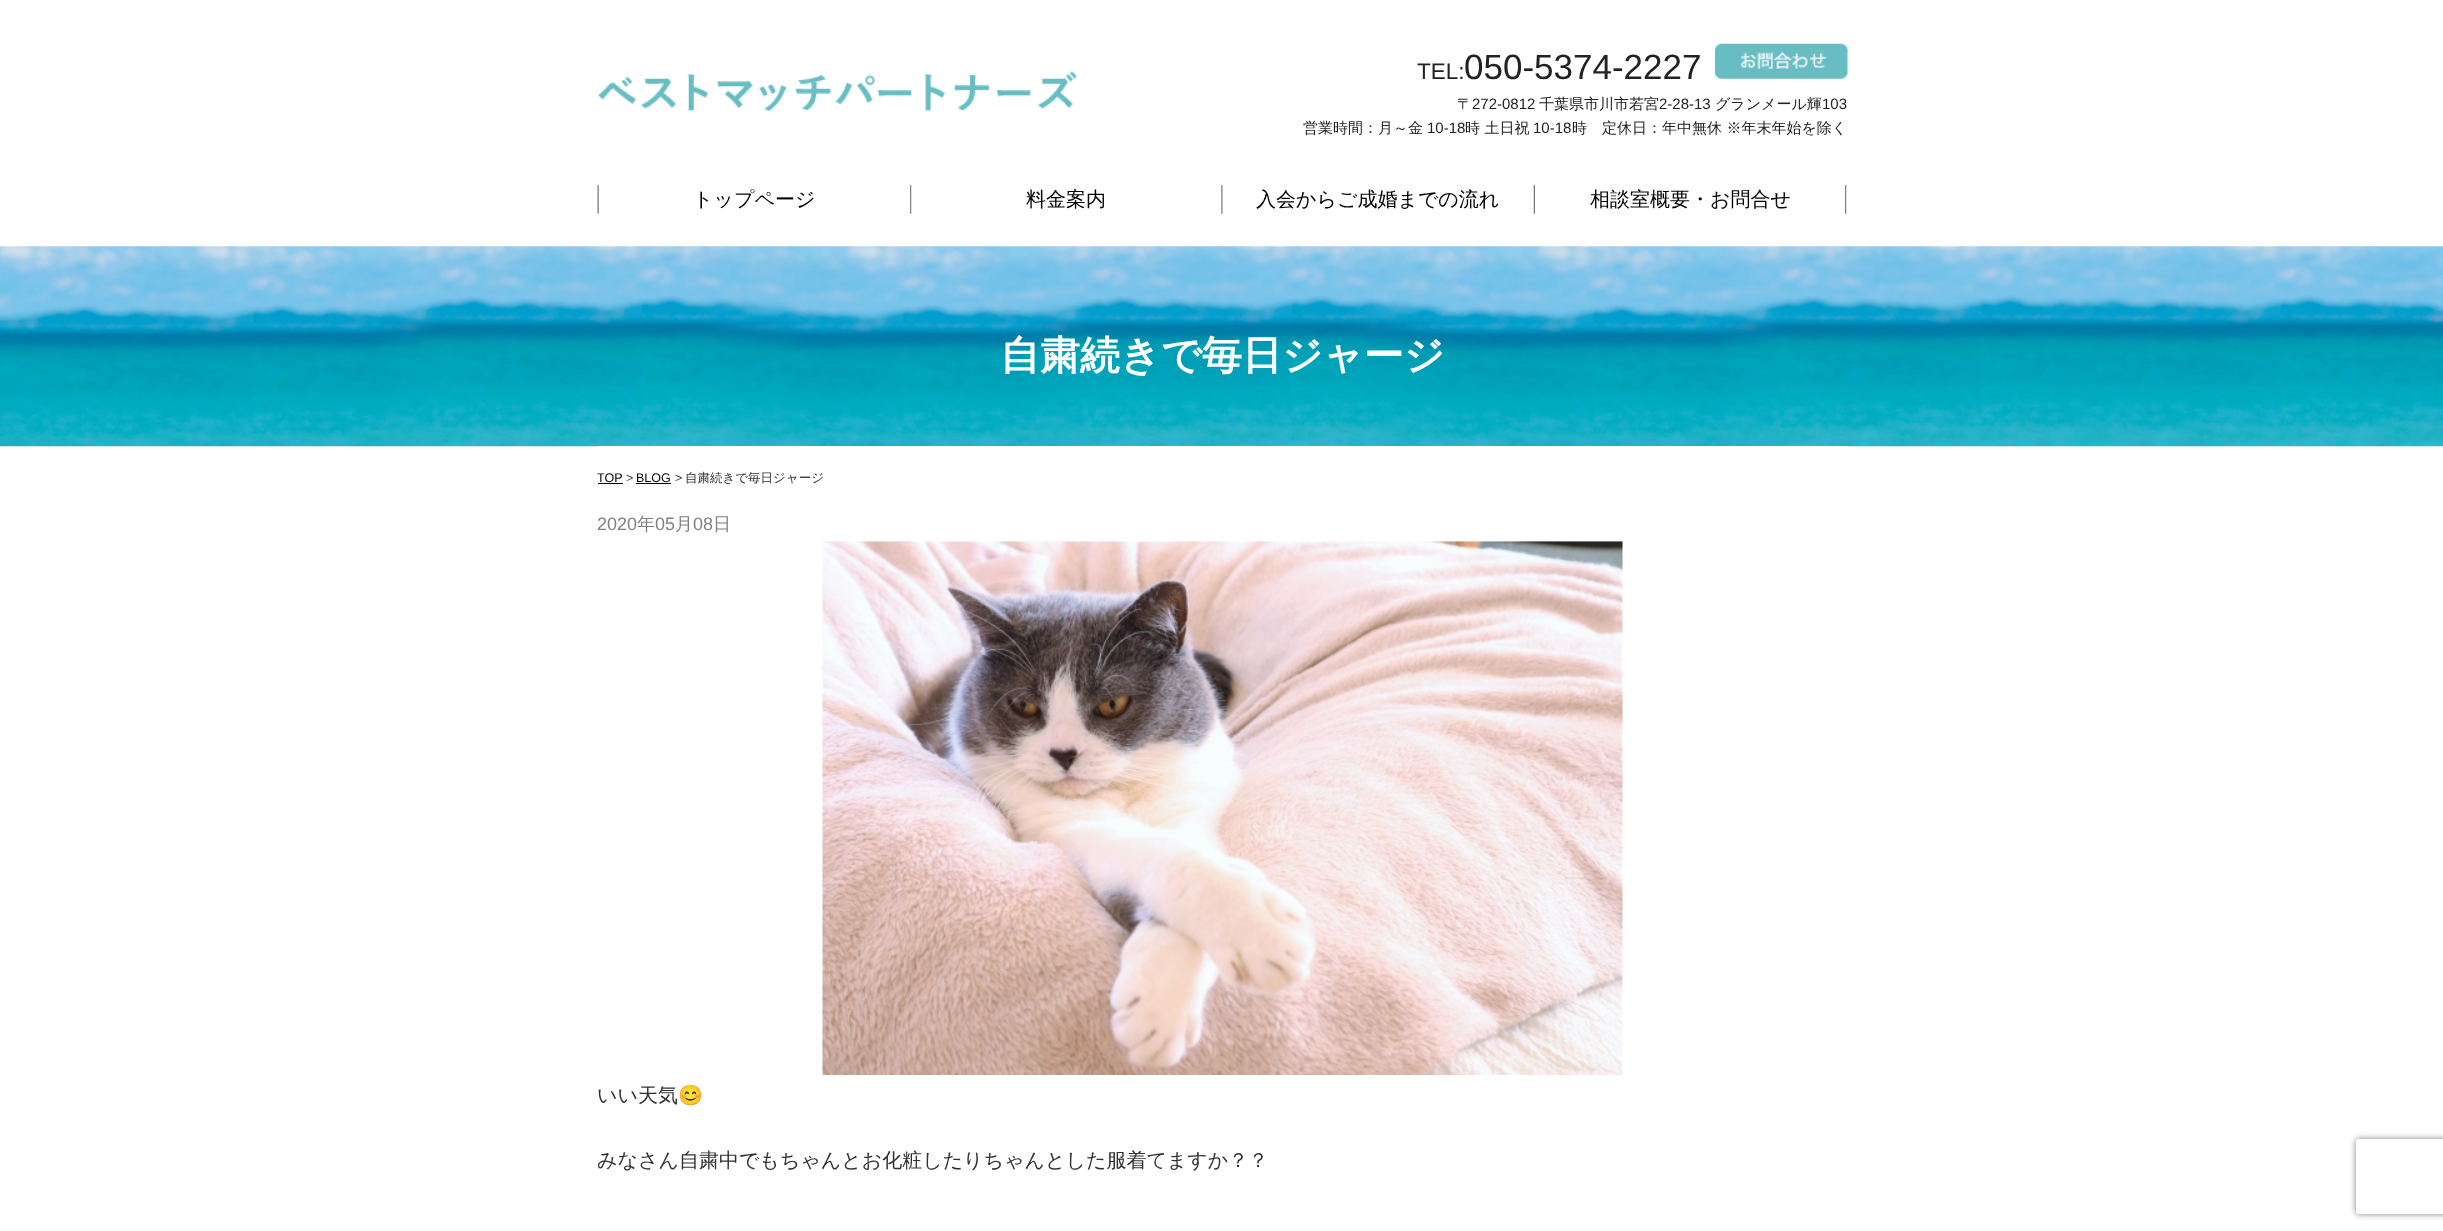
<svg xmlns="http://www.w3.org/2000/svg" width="2443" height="1231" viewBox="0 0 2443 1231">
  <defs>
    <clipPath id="clip1"><rect x="598" y="541" width="1250" height="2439"/></clipPath>
    <clipPath id="clip2"><path d="M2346 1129H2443V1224H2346ZM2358.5 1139H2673.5C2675 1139 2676 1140 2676 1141.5V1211.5C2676 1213 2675 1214 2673.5 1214H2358.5C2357 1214 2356 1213 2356 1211.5V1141.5C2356 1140 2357 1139 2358.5 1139Z" clip-rule="evenodd"/></clipPath>
  </defs>
  <rect width="100%" height="100%" fill="rgb(255,255,255)"/>
  <image x="597" y="71" width="481" height="41" href="pic1.png"/>
  <text x="1417" y="79" font-family="Liberation Sans" font-size="22.5" fill="rgb(34,34,34)">TEL:</text>
  <text x="1464" y="79" font-family="Liberation Sans" font-size="35" fill="rgb(34,34,34)">050-5374-2227</text>
  <image x="1715" y="43" width="133" height="36" href="pic2.png"/>
  <text x="1457" y="109" font-family="WenQuanYi Zen Hei" font-size="15" font-weight="500" fill="rgb(34,34,34)">〒</text>
  <text x="1472" y="109" font-family="Liberation Sans" font-size="15" fill="rgb(34,34,34)">272-0812</text>
  <text x="1539" y="109" font-family="WenQuanYi Zen Hei" font-size="15" font-weight="500" fill="rgb(34,34,34)">千葉県市川市若宮</text>
  <text x="1659" y="109" font-family="Liberation Sans" font-size="15" fill="rgb(34,34,34)">2-28-13</text>
  <text x="1715" y="109" font-family="WenQuanYi Zen Hei" font-size="15" font-weight="500" fill="rgb(34,34,34)">グランメール輝</text>
  <text x="1822" y="109" font-family="Liberation Sans" font-size="15" fill="rgb(34,34,34)">103</text>
  <text x="1303" y="133" font-family="WenQuanYi Zen Hei" font-size="15" font-weight="500" fill="rgb(34,34,34)">営業時間：月～金</text>
  <text x="1427" y="133" font-family="Liberation Sans" font-size="15" fill="rgb(34,34,34)">10-18</text>
  <text x="1465" y="133" font-family="WenQuanYi Zen Hei" font-size="15" font-weight="500" fill="rgb(34,34,34)">時 土日祝</text>
  <text x="1533" y="133" font-family="Liberation Sans" font-size="15" fill="rgb(34,34,34)">10-18</text>
  <text x="1572" y="133" font-family="WenQuanYi Zen Hei" font-size="15" font-weight="500" fill="rgb(34,34,34)">時　定休日：年中無休 ※年末年始を除く</text>
  <image x="597" y="184" width="315" height="30" href="pic3.png"/>
  <text x="693" y="206" font-family="WenQuanYi Zen Hei" font-size="20" font-weight="500" fill="rgb(0,0,0)">トップページ</text>
  <image x="1221" y="184" width="2" height="30" href="pic4.png"/>
  <text x="1026" y="206" font-family="WenQuanYi Zen Hei" font-size="20" font-weight="500" fill="rgb(0,0,0)">料金案内</text>
  <image x="1533" y="184" width="2" height="30" href="pic5.png"/>
  <text x="1256" y="206" font-family="WenQuanYi Zen Hei" font-size="20" font-weight="500" fill="rgb(0,0,0)">入会からご成婚までの流れ</text>
  <image x="1844" y="184" width="3" height="30" href="pic6.png"/>
  <text x="1590" y="206" font-family="WenQuanYi Zen Hei" font-size="20" font-weight="500" fill="rgb(0,0,0)">相談室概要・お問合せ</text>
  <image x="0" y="246" width="2443" height="201" href="pic7.png"/>
  <text x="1000" y="369" font-family="WenQuanYi Zen Hei" font-size="40" font-weight="bold" fill="rgb(255,255,255)">自粛続きで毎日ジャージ</text>
  <rect x="598" y="446" width="1250" height="1" fill="rgb(255,255,255)"/>
  <text x="597" y="482" font-family="Liberation Sans" font-size="12.5" fill="rgb(0,0,0)">TOP</text>
  <rect x="598" y="483" width="25" height="1" fill="rgb(0,0,0)"/>
  <text x="626" y="482" font-family="Liberation Sans" font-size="12.5" fill="rgb(48,48,48)">&gt;</text>
  <text x="636" y="482" font-family="Liberation Sans" font-size="12.5" fill="rgb(0,0,0)">BLOG</text>
  <rect x="636" y="483" width="35" height="1" fill="rgb(0,0,0)"/>
  <text x="675" y="482" font-family="Liberation Sans" font-size="12.5" fill="rgb(48,48,48)">&gt;</text>
  <text x="685" y="482" font-family="WenQuanYi Zen Hei" font-size="12.5" font-weight="500" fill="rgb(48,48,48)">自粛続きで毎日ジャージ</text>
  <text x="597" y="530" font-family="Liberation Sans" font-size="18" fill="rgb(128,128,128)">2020</text>
  <text x="637" y="530" font-family="WenQuanYi Zen Hei" font-size="18" font-weight="500" fill="rgb(128,128,128)">年</text>
  <text x="655" y="530" font-family="Liberation Sans" font-size="18" fill="rgb(128,128,128)">05</text>
  <text x="675" y="530" font-family="WenQuanYi Zen Hei" font-size="18" font-weight="500" fill="rgb(128,128,128)">月</text>
  <text x="693" y="530" font-family="Liberation Sans" font-size="18" fill="rgb(128,128,128)">08</text>
  <text x="713" y="530" font-family="WenQuanYi Zen Hei" font-size="18" font-weight="500" fill="rgb(128,128,128)">日</text>
  <image x="822" y="541" width="801" height="534" href="pic8.png"/>
  <text x="597" y="1102" font-family="WenQuanYi Zen Hei" font-size="20" font-weight="500" fill="rgb(48,48,48)">いい天気</text>
  <text x="678" y="1102" font-family="Noto Color Emoji" font-size="20" fill="rgb(48,48,48)">😊</text>
  <g clip-path="url(#clip1)">
    <text x="597" y="1167" font-family="WenQuanYi Zen Hei" font-size="20" font-weight="500" fill="rgb(48,48,48)">みなさん自粛中でもちゃんとお化粧したりちゃんとした服着てますか？？</text>
  </g>
  <g clip-path="url(#clip2)">
    <rect x="2356" y="1139" width="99" height="75" rx="2.5" fill="rgb(128,128,128)" filter="blur(3px)"/>
  </g>
</svg>
